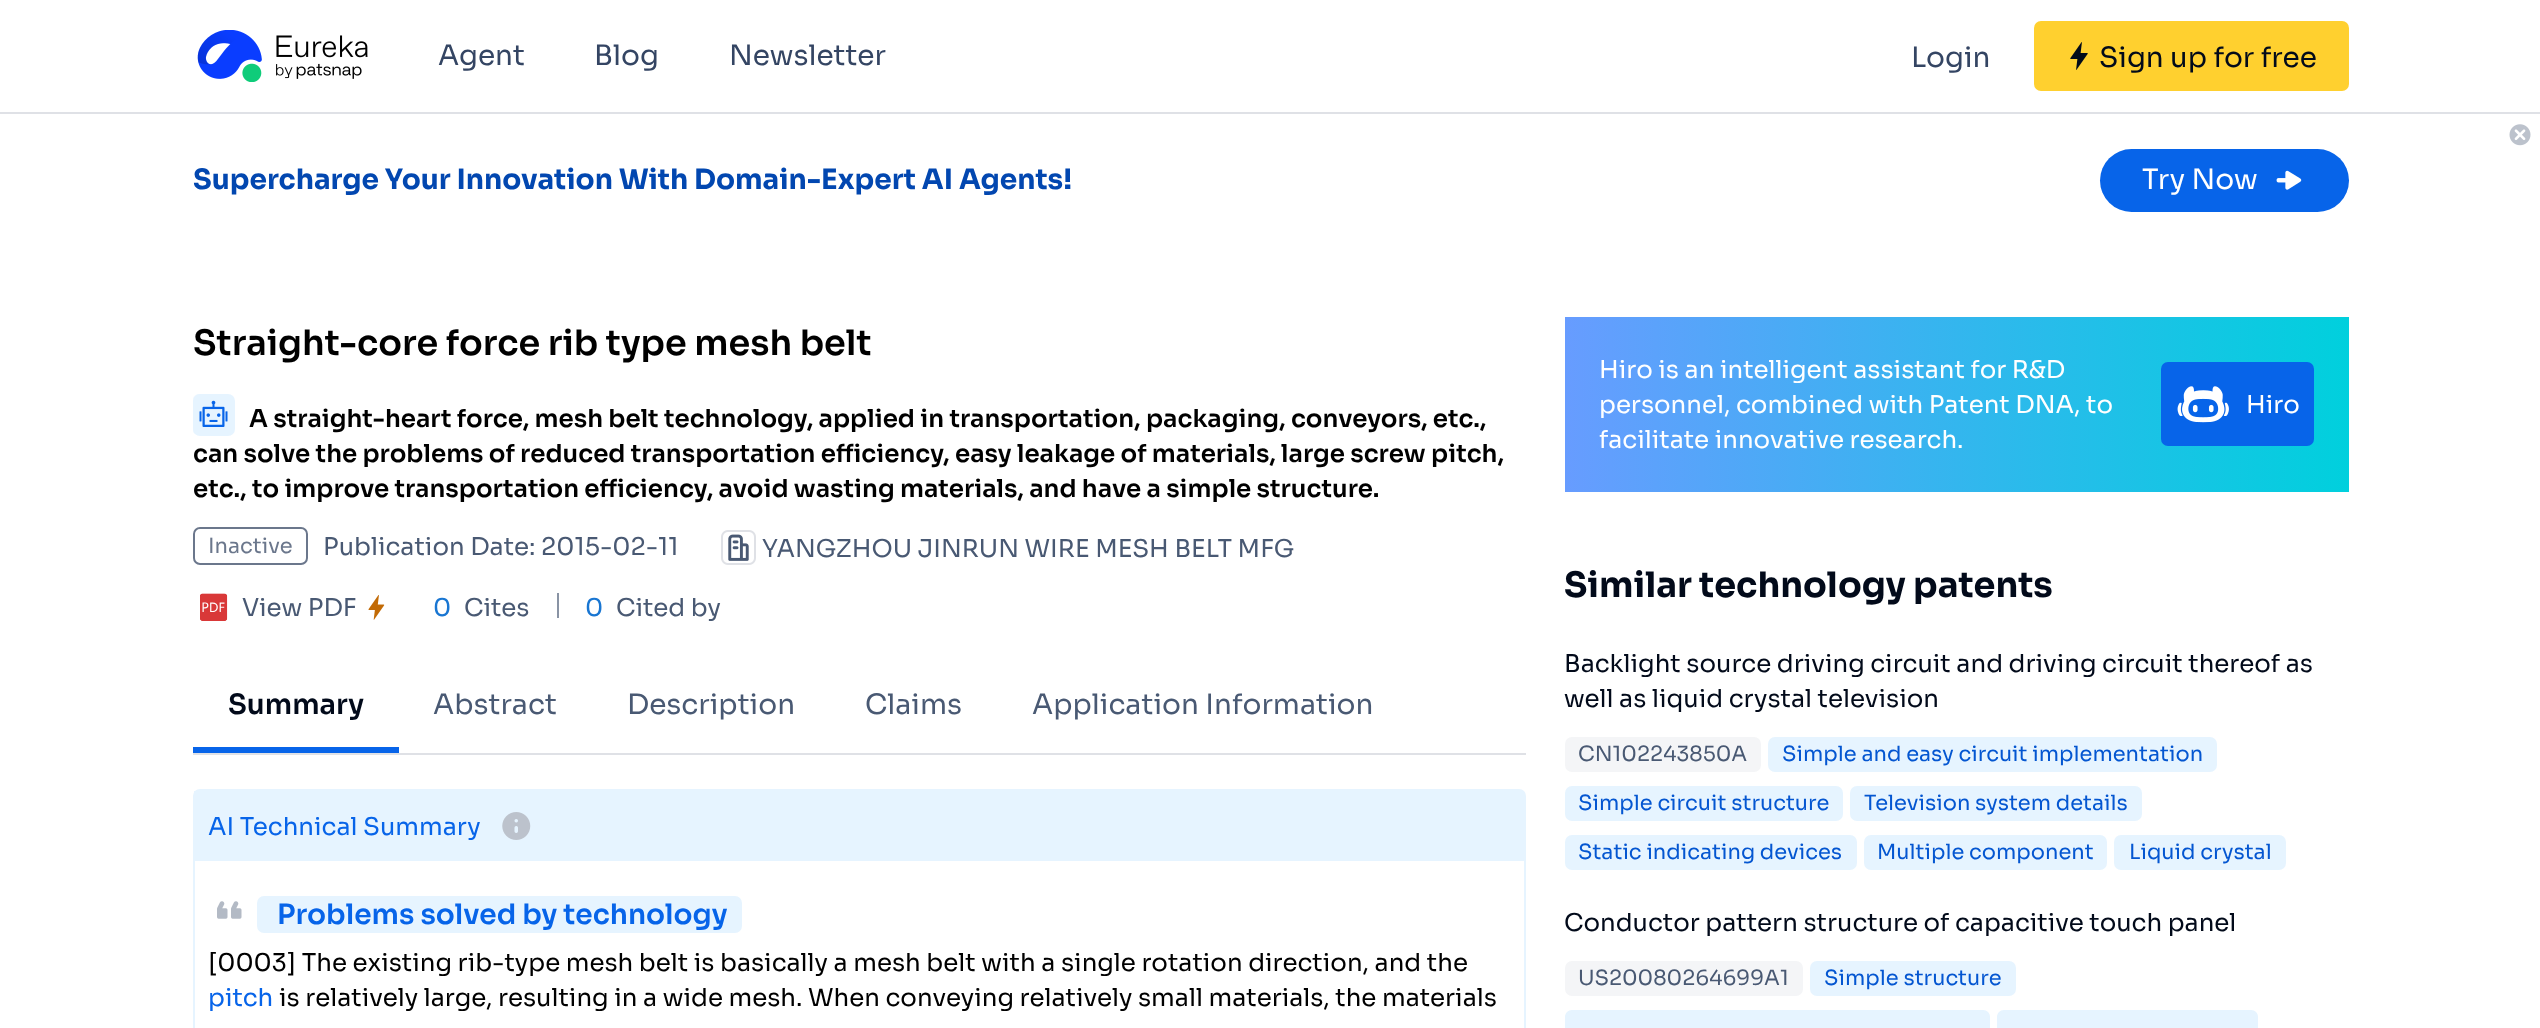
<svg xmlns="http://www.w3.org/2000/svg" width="2540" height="1028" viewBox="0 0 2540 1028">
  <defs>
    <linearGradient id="g1" gradientUnits="userSpaceOnUse" x1="1565" y1="404" x2="2349" y2="404"><stop offset="0" stop-color="rgb(103,156,255)"/><stop offset="1" stop-color="rgb(0,208,221)"/></linearGradient>
  </defs>
  <rect width="100%" height="100%" fill="rgb(255,255,255)"/>
  <rect x="0" y="112" width="2540" height="2" fill="rgb(223,225,230)"/>
  <image x="197" y="30" width="171" height="52" href="pic1.png"/>
  <g font-family="Sora" font-size="28" fill="rgb(52,69,99)">
    <text x="438" y="65">Agent</text>
    <text x="594" y="65">Blog</text>
    <text x="729" y="65">Newsletter</text>
    <text x="1911" y="67">Login</text>
  </g>
  <rect x="2034" y="21" width="315" height="70" rx="7" fill="rgb(255,208,47)"/>
  <image x="2070" y="42" width="18" height="28" href="pic2.png"/>
  <text x="2099" y="67" font-family="Sora" font-size="28" fill="rgb(2,10,26)">Sign up for free</text>
  <image x="2509" y="124" width="22" height="22" href="pic3.png"/>
  <text x="193" y="189" font-family="Sora" font-size="28" font-weight="bold" fill="rgb(2,71,176)">Supercharge Your Innovation With Domain-Expert AI Agents!</text>
  <rect x="2100" y="149" width="249" height="63" rx="31.5" fill="rgb(7,100,233)"/>
  <text x="2142" y="189" font-family="Sora" font-size="28" fill="rgb(255,255,255)">Try Now</text>
  <image x="2276" y="170" width="26" height="20" href="pic4.png"/>
  <text x="193" y="355" font-family="Sora" font-size="35" font-weight="600" fill="rgb(0,0,0)">Straight-core force rib type mesh belt</text>
  <rect x="193" y="394" width="42" height="42" rx="7" fill="rgb(230,244,255)"/>
  <image x="193" y="394" width="35" height="40" href="pic5.png"/>
  <g font-family="Sora" font-size="24.5" font-weight="600" fill="rgb(0,0,0)">
    <text x="249" y="427">A straight-heart force, mesh belt technology, applied in transportation, packaging, conveyors, etc.,</text>
    <text>
      <tspan x="193" y="462">can solve the problems of reduced transportation efficiency, easy leakage of materials, large screw pitch,</tspan>
      <tspan x="193" y="497">etc., to improve transportation efficiency, avoid wasting materials, and have a simple structure.</tspan>
    </text>
  </g>
  <rect x="194" y="528" width="113" height="36" rx="6" fill="none" stroke="rgb(107,119,140)" stroke-width="2"/>
  <text x="208" y="553" font-family="Sora" font-size="21" fill="rgb(107,119,140)">Inactive</text>
  <text x="323" y="555" font-family="Sora" font-size="24.5" fill="rgb(73,89,115)">Publication Date: 2015-02-11</text>
  <image x="721" y="530" width="35" height="35" href="pic6.png"/>
  <text x="762" y="557" font-family="Sora" font-size="24.5" fill="rgb(73,89,115)">YANGZHOU JINRUN WIRE MESH BELT MFG</text>
  <image x="200" y="593" width="28" height="28" href="pic7.png"/>
  <text x="242" y="616" font-family="Sora" font-size="24.5" fill="rgb(73,89,115)">View PDF</text>
  <image x="368" y="595" width="17" height="25" href="pic8.png"/>
  <text x="433" y="616" font-family="Sora" font-size="24.5" fill="rgb(25,118,210)">0</text>
  <text x="464" y="616" font-family="Sora" font-size="24.5" fill="rgb(73,89,115)">Cites</text>
  <rect x="557" y="593" width="2" height="25" fill="rgb(137,147,164)"/>
  <text x="585" y="616" font-family="Sora" font-size="24.5" fill="rgb(25,118,210)">0</text>
  <text x="616" y="616" font-family="Sora" font-size="24.5" fill="rgb(73,89,115)">Cited by</text>
  <rect x="193" y="753" width="1333" height="2" fill="rgb(223,225,230)"/>
  <rect x="193" y="747" width="206" height="6" fill="rgb(7,100,233)"/>
  <text x="228" y="714" font-family="Sora" font-size="28" font-weight="600" fill="rgb(2,10,26)">Summary</text>
  <g font-family="Sora" font-size="28" fill="rgb(73,89,115)">
    <text x="433" y="714">Abstract</text>
    <text x="627" y="714">Description</text>
    <text x="865" y="714">Claims</text>
    <text x="1032" y="714">Application Information</text>
  </g>
  <path d="M200 790H1519C1522.5 790 1525 792.5 1525 796V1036H194V796C194 792.5 196.5 790 200 790Z" fill="none" stroke="rgb(230,244,255)" stroke-width="2"/>
  <rect x="194" y="791" width="1330" height="70" fill="rgb(230,244,255)"/>
  <text x="208" y="835" font-family="Sora" font-size="24.5" fill="rgb(7,100,233)">AI Technical Summary</text>
  <image x="502" y="812" width="29" height="28" href="pic9.png"/>
  <image x="217" y="901" width="25" height="18" href="pic10.png"/>
  <rect x="257" y="896" width="485" height="37" rx="7" fill="rgb(230,244,255)"/>
  <text x="277" y="924" font-family="Sora" font-size="28" font-weight="600" fill="rgb(7,100,233)">Problems solved by technology</text>
  <text x="208" y="971" font-family="Sora" font-size="24.5" fill="rgb(0,0,0)">[0003] The existing rib-type mesh belt is basically a mesh belt with a single rotation direction, and the</text>
  <text x="208" y="1006" font-family="Sora" font-size="24.5" fill="rgb(7,100,233)">pitch</text>
  <text x="279" y="1006" font-family="Sora" font-size="24.5" fill="rgb(0,0,0)">is relatively large, resulting in a wide mesh. When conveying relatively small materials, the materials</text>
  <rect x="1565" y="317" width="784" height="175" fill="url(#g1)"/>
  <g font-family="Sora" font-size="24.5" fill="rgb(255,255,255)">
    <text>
      <tspan x="1599" y="378">Hiro is an intelligent assistant for R&amp;D</tspan>
      <tspan x="1599" y="413">personnel, combined with Patent DNA, to</tspan>
      <tspan x="1599" y="448">facilitate innovative research.</tspan>
    </text>
  </g>
  <rect x="2161" y="362" width="153" height="84" rx="7" fill="rgb(7,100,233)"/>
  <image x="2177" y="386" width="52" height="37" href="pic11.png"/>
  <text x="2246" y="413" font-family="Sora" font-size="24.5" fill="rgb(255,255,255)">Hiro</text>
  <text x="1564" y="597" font-family="Sora" font-size="35" font-weight="bold" fill="rgb(2,10,26)">Similar technology patents</text>
  <g font-family="Sora" font-size="24.5" fill="rgb(2,10,26)">
    <text>
      <tspan x="1564" y="672">Backlight source driving circuit and driving circuit thereof as</tspan>
      <tspan x="1564" y="707">well as liquid crystal television</tspan>
    </text>
  </g>
  <rect x="1565" y="737" width="196" height="35" rx="7" fill="rgb(244,245,247)"/>
  <text x="1578" y="761" font-family="Sora" font-size="21" fill="rgb(73,89,115)">CN102243850A</text>
  <rect x="1768" y="737" width="449" height="35" rx="7" fill="rgb(230,244,255)"/>
  <text x="1782" y="761" font-family="Sora" font-size="21" fill="rgb(4,86,209)">Simple and easy circuit implementation</text>
  <rect x="1565" y="786" width="278" height="35" rx="7" fill="rgb(230,244,255)"/>
  <text x="1578" y="810" font-family="Sora" font-size="21" fill="rgb(4,86,209)">Simple circuit structure</text>
  <rect x="1850" y="786" width="292" height="35" rx="7" fill="rgb(230,244,255)"/>
  <text x="1864" y="810" font-family="Sora" font-size="21" fill="rgb(4,86,209)">Television system details</text>
  <rect x="1565" y="835" width="292" height="35" rx="7" fill="rgb(230,244,255)"/>
  <text x="1578" y="859" font-family="Sora" font-size="21" fill="rgb(4,86,209)">Static indicating devices</text>
  <rect x="1864" y="835" width="243" height="35" rx="7" fill="rgb(230,244,255)"/>
  <text x="1877" y="859" font-family="Sora" font-size="21" fill="rgb(4,86,209)">Multiple component</text>
  <rect x="2114" y="835" width="172" height="35" rx="7" fill="rgb(230,244,255)"/>
  <text x="2129" y="859" font-family="Sora" font-size="21" fill="rgb(4,86,209)">Liquid crystal</text>
  <text x="1564" y="931" font-family="Sora" font-size="24.5" fill="rgb(2,10,26)">Conductor pattern structure of capacitive touch panel</text>
  <rect x="1565" y="961" width="238" height="35" rx="7" fill="rgb(244,245,247)"/>
  <text x="1578" y="985" font-family="Sora" font-size="21" fill="rgb(73,89,115)">US20080264699A1</text>
  <rect x="1810" y="961" width="206" height="35" rx="7" fill="rgb(230,244,255)"/>
  <text x="1824" y="985" font-family="Sora" font-size="21" fill="rgb(4,86,209)">Simple structure</text>
  <path d="M1572 1010H1983C1987 1010 1990 1013 1990 1017V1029H1565V1017C1565 1013 1568 1010 1572 1010Z" fill="rgb(230,244,255)"/>
  <path d="M2004 1010H2251C2255 1010 2258 1013 2258 1017V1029H1997V1017C1997 1013 2000 1010 2004 1010Z" fill="rgb(230,244,255)"/>
</svg>
